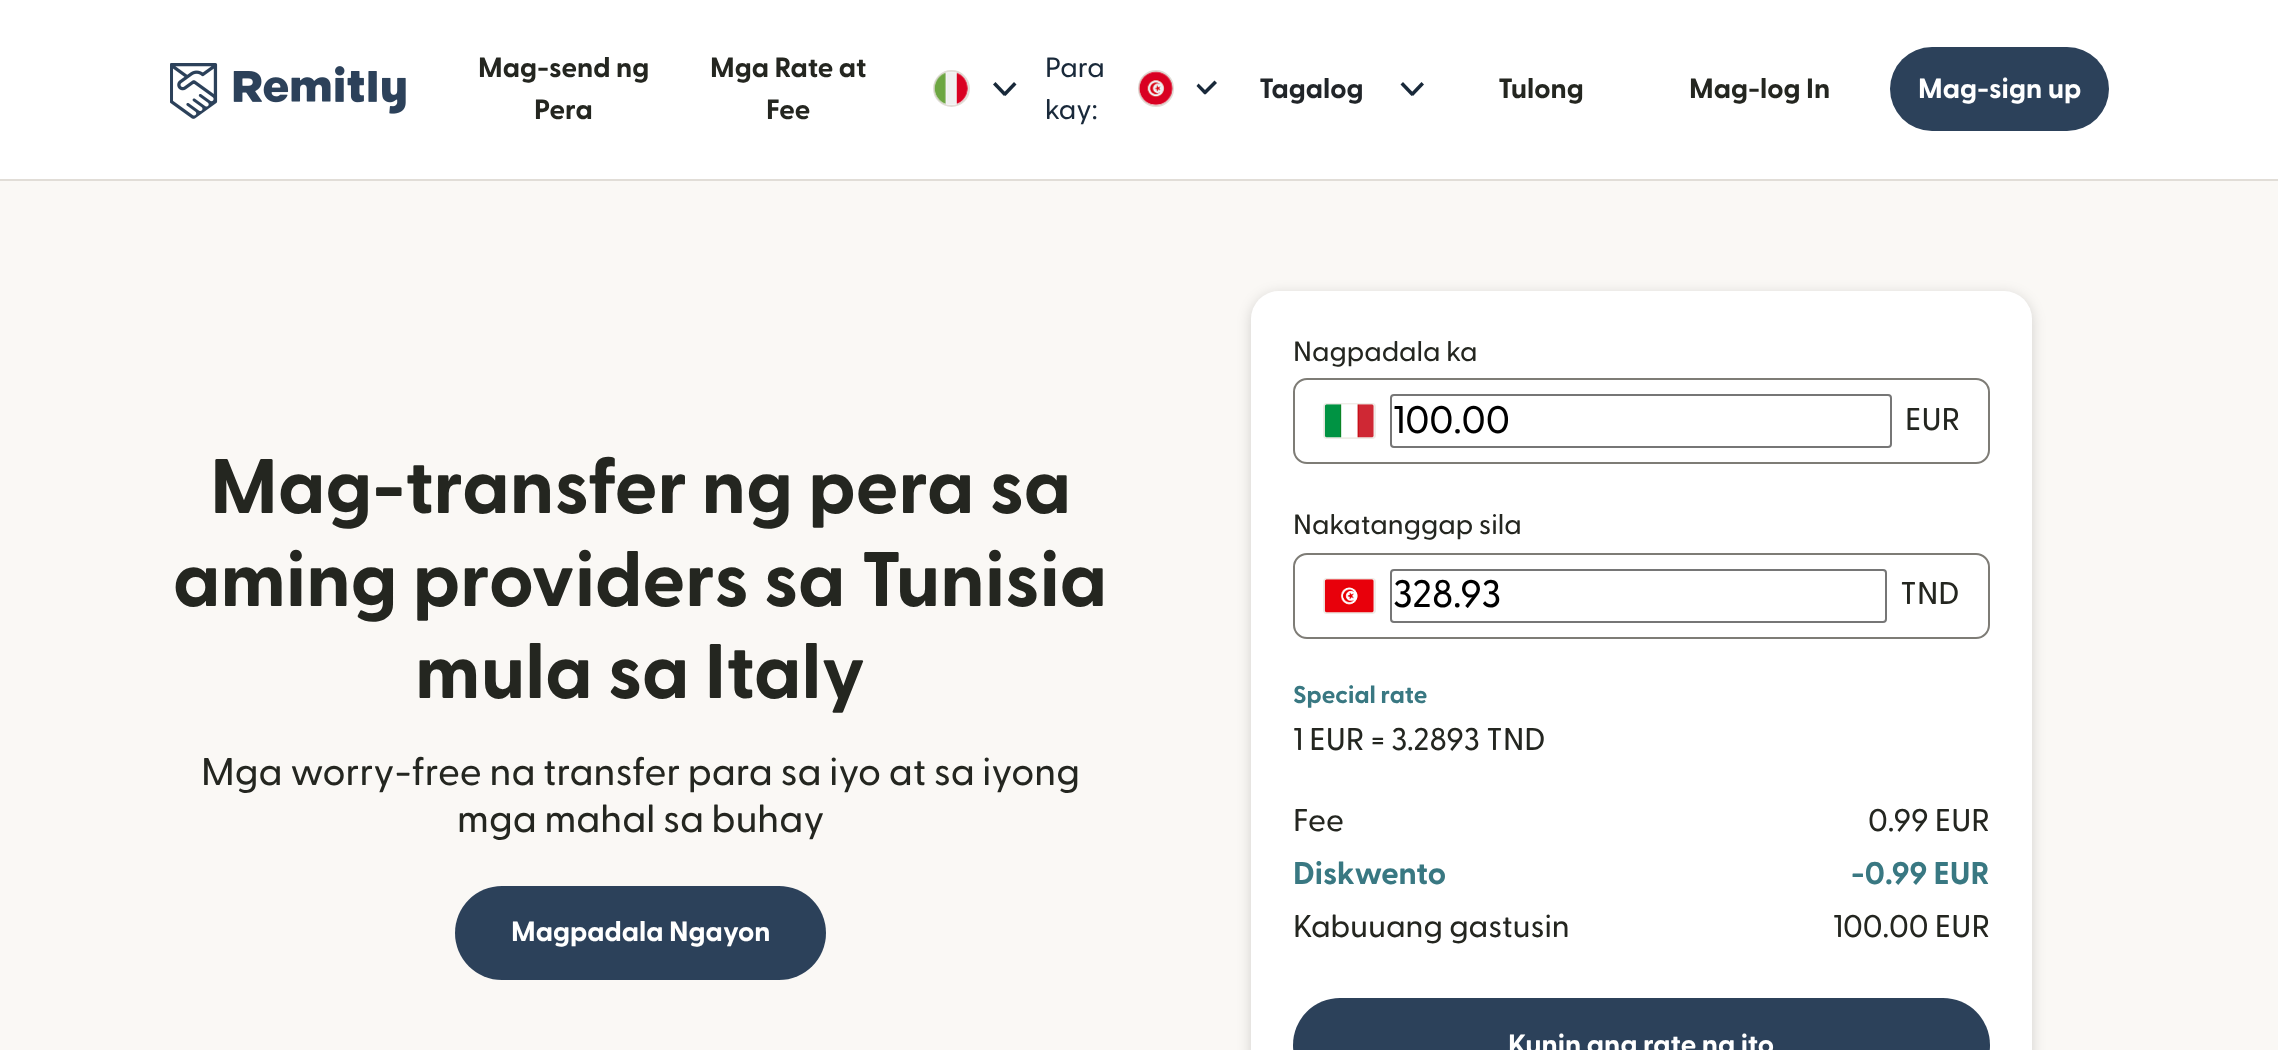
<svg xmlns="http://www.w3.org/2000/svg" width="2278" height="1050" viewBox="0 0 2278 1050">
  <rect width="100%" height="100%" fill="rgb(250,248,245)"/>
  <rect x="0" y="0" width="2278" height="179" fill="rgb(255,255,255)"/>
  <rect x="0" y="179" width="2278" height="2" fill="rgb(225,221,215)"/>
  <image x="170" y="63" width="236" height="56" href="pic1.png"/>
  <g font-family="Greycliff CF" font-size="28" font-weight="bold" fill="rgb(36,38,32)">
    <text x="478" y="77">Mag-send ng</text>
    <text x="534" y="119">Pera</text>
    <text x="710" y="77">Mga Rate at</text>
    <text x="766" y="119">Fee</text>
  </g>
  <circle cx="951.5" cy="88.5" r="17.5" fill="none" stroke="rgb(225,221,215)" stroke-width="2"/>
  <image x="934" y="71" width="34" height="34" href="pic2.png"/>
  <path d="M1014 82L1016.5 84.5L1005.5 96L1003 93.5Z" fill="rgb(25,41,58)"/>
  <path d="M995.5 82L1006.5 93.5L1004 96L993 84.5Z" fill="rgb(25,41,58)"/>
  <g font-family="Greycliff CF" font-size="28" font-weight="500" fill="rgb(25,41,58)">
    <text>
      <tspan x="1045" y="77">Para</tspan>
      <tspan x="1045" y="119">kay:</tspan>
    </text>
  </g>
  <rect x="1139" y="71" width="34" height="35" rx="17" fill="none" stroke="rgb(225,221,215)" stroke-width="2"/>
  <image x="1138" y="71" width="35" height="35" href="pic3.png"/>
  <path d="M1214.5 80.5L1217 83L1205.5 94.5L1203 92Z" fill="rgb(25,41,58)"/>
  <path d="M1198.5 83.5L1207 92L1204.5 94.5L1196.5 86Z" fill="rgb(25,41,58)"/>
  <text x="1259" y="98" font-family="Greycliff CF" font-size="28" font-weight="bold" fill="rgb(33,37,41)">Tagalog</text>
  <path d="M1421.5 82L1424 84.5L1413 96L1410.5 93.5Z" fill="rgb(25,41,58)"/>
  <path d="M1403 82L1414 93.5L1411.5 96L1400.5 84.5Z" fill="rgb(25,41,58)"/>
  <g font-family="Greycliff CF" font-size="28" font-weight="bold" fill="rgb(36,38,32)">
    <text x="1498" y="98">Tulong</text>
    <text x="1689" y="98">Mag-log In</text>
  </g>
  <rect x="1890" y="47" width="219" height="84" rx="42" fill="rgb(44,65,90)"/>
  <text x="1918" y="98" font-family="Greycliff CF" font-size="28" font-weight="bold" fill="rgb(255,255,255)">Mag-sign up</text>
  <g font-family="Greycliff CF" font-size="77" font-weight="bold" fill="rgb(36,38,32)">
    <text x="210" y="513">Mag-transfer ng pera sa</text>
    <text x="173" y="606">aming providers sa Tunisia</text>
    <text x="415" y="698">mula sa Italy</text>
  </g>
  <g font-family="Greycliff CF" font-size="38.5" font-weight="500" fill="rgb(36,38,32)">
    <text x="201" y="785">Mga worry-free na transfer para sa iyo at sa iyong</text>
    <text x="457" y="832">mga mahal sa buhay</text>
  </g>
  <rect x="455" y="886" width="371" height="94" rx="47" fill="rgb(44,65,90)"/>
  <text x="511" y="941" font-family="Greycliff CF" font-size="28" font-weight="bold" fill="rgb(255,255,255)">Magpadala Ngayon</text>
  <rect x="1251" y="294" width="781" height="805" rx="28" fill="rgba(0,0,0,0.16)" filter="blur(7px)"/>
  <rect x="1251" y="291" width="781" height="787" rx="28" fill="rgb(255,255,255)"/>
  <text x="1293" y="361" font-family="Greycliff CF" font-size="28" font-weight="500" fill="rgb(36,38,32)">Nagpadala ka</text>
  <rect x="1294" y="379" width="695" height="84" rx="13" fill="none" stroke="rgb(126,124,118)" stroke-width="2"/>
  <rect x="1324" y="404" width="51" height="34" rx="3" fill="none" stroke="rgb(239,236,231)" stroke-width="2"/>
  <image x="1324" y="404" width="50" height="34" href="pic4.png"/>
  <rect x="1391" y="395" width="500" height="52" rx="3" fill="none" stroke="rgb(118,118,118)" stroke-width="2"/>
  <text x="1393" y="433" font-family="Greycliff CF" font-size="38.5" font-weight="500" fill="rgb(0,0,0)">100.00</text>
  <text x="1905" y="430" font-family="Greycliff CF" font-size="31.5" font-weight="500" fill="rgb(36,38,32)">EUR</text>
  <text x="1293" y="534" font-family="Greycliff CF" font-size="28" font-weight="500" fill="rgb(36,38,32)">Nakatanggap sila</text>
  <rect x="1294" y="554" width="695" height="84" rx="13" fill="none" stroke="rgb(126,124,118)" stroke-width="2"/>
  <rect x="1324" y="579" width="51" height="34" rx="3" fill="none" stroke="rgb(239,236,231)" stroke-width="2"/>
  <image x="1324" y="579" width="50" height="34" href="pic5.png"/>
  <rect x="1391" y="570" width="495" height="52" rx="3" fill="none" stroke="rgb(118,118,118)" stroke-width="2"/>
  <text x="1393" y="607" font-family="Greycliff CF" font-size="38.5" font-weight="500" fill="rgb(0,0,0)">328.93</text>
  <text x="1900" y="604" font-family="Greycliff CF" font-size="31.5" font-weight="500" fill="rgb(36,38,32)">TND</text>
  <text x="1293" y="703" font-family="Greycliff CF" font-size="24.5" font-weight="bold" fill="rgb(57,120,130)">Special rate</text>
  <g font-family="Greycliff CF" font-size="31.5" font-weight="500" fill="rgb(36,38,32)">
    <text x="1293" y="750">1 EUR = 3.2893 TND</text>
    <text x="1293" y="831">Fee</text>
    <text x="1868" y="831">0.99 EUR</text>
  </g>
  <g font-family="Greycliff CF" font-size="31.5" font-weight="bold" fill="rgb(57,120,130)">
    <text x="1293" y="884">Diskwento</text>
    <text x="1851" y="884">-0.99 EUR</text>
  </g>
  <g font-family="Greycliff CF" font-size="31.5" font-weight="500" fill="rgb(36,38,32)">
    <text x="1293" y="937">Kabuuang gastusin</text>
    <text x="1833" y="937">100.00 EUR</text>
  </g>
  <rect x="1293" y="998" width="697" height="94" rx="47" fill="rgb(44,65,90)"/>
  <text x="1508" y="1054" font-family="Greycliff CF" font-size="28" font-weight="bold" fill="rgb(255,255,255)">Kunin ang rate na ito</text>
</svg>
